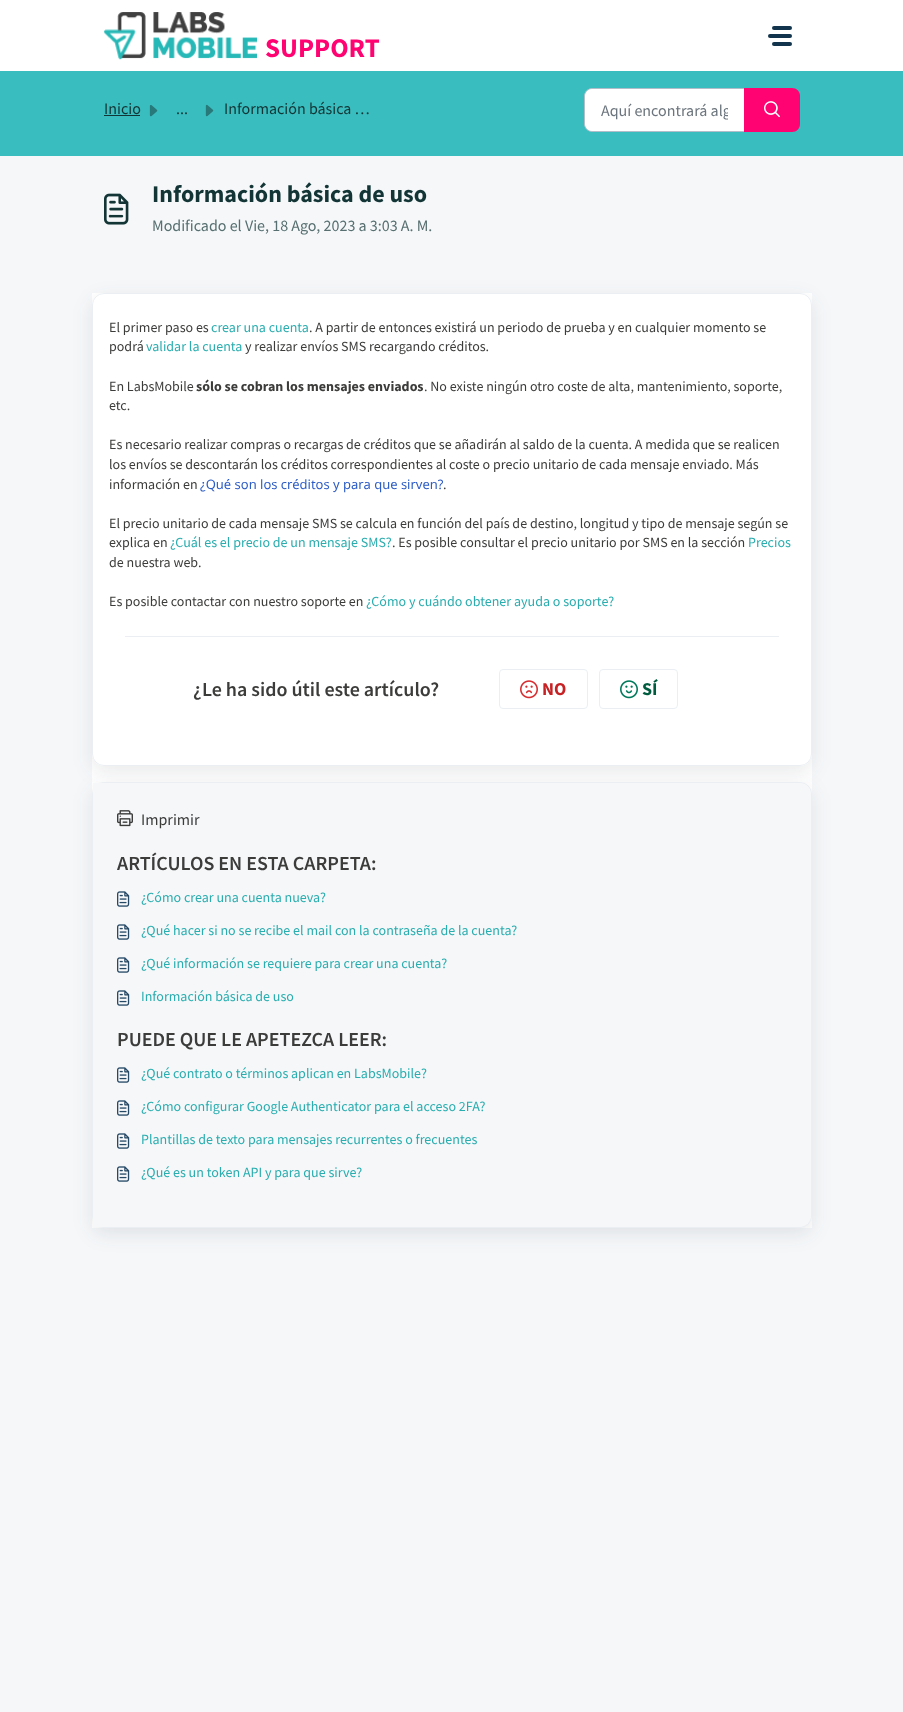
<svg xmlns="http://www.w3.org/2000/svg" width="903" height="1712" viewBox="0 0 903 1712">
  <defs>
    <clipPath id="clip1"><rect x="601" y="100" width="127" height="20"/></clipPath>
    <clipPath id="clip2"><path d="M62 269H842V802H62ZM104 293H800C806.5 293 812 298.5 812 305V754C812 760.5 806.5 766 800 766H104C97.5 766 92 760.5 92 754V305C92 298.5 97.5 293 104 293Z" clip-rule="evenodd"/></clipPath>
  </defs>
  <rect width="100%" height="100%" fill="rgb(245,247,249)"/>
  <rect x="0" y="0" width="903" height="71" fill="rgb(255,255,255)"/>
  <rect x="772" y="26" width="20" height="4" rx="2" fill="rgb(18,52,77)"/>
  <rect x="768" y="34" width="24" height="4" rx="2" fill="rgb(18,52,77)"/>
  <rect x="772" y="42" width="20" height="4" rx="2" fill="rgb(18,52,77)"/>
  <image x="104" y="12" width="153" height="48" href="pic1.png"/>
  <text x="265" y="57" font-family="Source Sans Pro" font-size="27" font-weight="bold" fill="rgb(255,3,115)">SUPPORT</text>
  <rect x="0" y="71" width="903" height="85" fill="rgb(58,189,191)"/>
  <text x="104" y="114" font-family="Source Sans Pro" font-size="16" fill="rgb(19,53,53)">Inicio</text>
  <rect x="104" y="115" width="36" height="1" fill="rgb(19,53,53)"/>
  <image x="149" y="105" width="9" height="12" href="pic2.png"/>
  <text x="176" y="114" font-family="Source Sans Pro" font-size="16" fill="rgb(19,53,53)">...</text>
  <image x="205" y="104" width="9" height="13" href="pic3.png"/>
  <text x="224" y="114" font-family="Source Sans Pro" font-size="16" fill="rgb(19,53,53)">Información básica …</text>
  <path d="M592 88.5H744.5V131.5H592C588 131.5 584.5 128 584.5 124V96C584.5 92 588 88.5 592 88.5Z" fill="rgb(255,255,255)" stroke="rgb(177,189,200)"/>
  <g clip-path="url(#clip1)">
    <text x="601" y="116" font-family="Source Sans Pro" font-size="16" fill="rgb(108,117,125)">Aquí encontrará alg</text>
  </g>
  <path d="M744 88H792C796.5 88 800 91.5 800 96V124C800 128.5 796.5 132 792 132H744Z" fill="rgb(255,3,115)"/>
  <image x="764" y="101" width="16" height="17" href="pic4.png"/>
  <image x="104" y="193" width="25" height="32" href="pic5.png"/>
  <text x="152" y="202" font-family="Source Sans Pro" font-size="24" font-weight="bold" fill="rgb(19,53,53)">Información básica de uso</text>
  <text x="152" y="231" font-family="Source Sans Pro" font-size="16" fill="rgb(87,111,112)">Modificado el Vie, 18 Ago, 2023 a 3:03 A. M.</text>
  <rect x="92" y="293" width="720" height="935" fill="rgb(255,255,255)"/>
  <g clip-path="url(#clip2)">
    <rect x="92" y="299" width="720" height="473" rx="12" fill="rgba(39,49,58,0.1)" filter="blur(9.5px)"/>
  </g>
  <rect x="92.5" y="293.5" width="719" height="472" rx="11.5" fill="none" stroke="rgb(235,239,243)"/>
  <text x="109" y="332" font-family="Source Sans Pro" font-size="14" fill="rgb(60,60,59)">El primer paso es</text>
  <text x="211" y="332" font-family="Source Sans Pro" font-size="14" fill="rgb(42,173,175)">crear una cuenta</text>
  <g font-family="Source Sans Pro" font-size="14" fill="rgb(60,60,59)">
    <text x="309" y="332">. A partir de entonces existirá un periodo de prueba y en cualquier momento se</text>
    <text x="109" y="351">podrá</text>
  </g>
  <text x="146" y="351" font-family="Source Sans Pro" font-size="14" fill="rgb(42,173,175)">validar la cuenta</text>
  <g font-family="Source Sans Pro" font-size="14" fill="rgb(60,60,59)">
    <text x="245" y="351">y realizar envíos SMS recargando créditos.</text>
    <text x="109" y="391">En LabsMobile</text>
  </g>
  <text x="196" y="391" font-family="Source Sans Pro" font-size="14" font-weight="bold" fill="rgb(60,60,59)">sólo se cobran los mensajes enviados</text>
  <g font-family="Source Sans Pro" font-size="14" fill="rgb(60,60,59)">
    <text x="424" y="391">. No existe ningún otro coste de alta, mantenimiento, soporte,</text>
    <text x="109" y="410">etc.</text>
    <text>
      <tspan x="109" y="449">Es necesario realizar compras o recargas de créditos que se añadirán al saldo de la cuenta. A medida que se realicen</tspan>
      <tspan x="109" y="469">los envíos se descontarán los créditos correspondientes al coste o precio unitario de cada mensaje enviado. Más</tspan>
      <tspan x="109" y="489">información en</tspan>
    </text>
  </g>
  <text x="200" y="489" font-family="Noto Sans" font-size="13" fill="rgb(44,92,197)">¿Qué son los créditos y para que sirven?</text>
  <g font-family="Source Sans Pro" font-size="14" fill="rgb(60,60,59)">
    <text x="443" y="489">.</text>
    <text>
      <tspan x="109" y="528">El precio unitario de cada mensaje SMS se calcula en función del país de destino, longitud y tipo de mensaje según se</tspan>
      <tspan x="109" y="547">explica en</tspan>
    </text>
  </g>
  <text x="170" y="547" font-family="Source Sans Pro" font-size="14" fill="rgb(42,173,175)">¿Cuál es el precio de un mensaje SMS?</text>
  <text x="392" y="547" font-family="Source Sans Pro" font-size="14" fill="rgb(60,60,59)">. Es posible consultar el precio unitario por SMS en la sección</text>
  <text x="748" y="547" font-family="Source Sans Pro" font-size="14" fill="rgb(42,173,175)">Precios</text>
  <g font-family="Source Sans Pro" font-size="14" fill="rgb(60,60,59)">
    <text x="109" y="567">de nuestra web.</text>
    <text x="109" y="606">Es posible contactar con nuestro soporte en</text>
  </g>
  <text x="366" y="606" font-family="Source Sans Pro" font-size="14" fill="rgb(42,173,175)">¿Cómo y cuándo obtener ayuda o soporte?</text>
  <rect x="125" y="636" width="654" height="1" fill="rgb(235,239,243)"/>
  <text x="193" y="696" font-family="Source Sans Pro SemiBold" font-size="20" font-weight="600" fill="rgb(60,60,59)">¿Le ha sido útil este artículo?</text>
  <rect x="499.5" y="669.5" width="88" height="39" rx="3.5" fill="none" stroke="rgb(235,239,243)"/>
  <image x="520" y="680" width="18" height="19" href="pic6.png"/>
  <text x="542" y="695" font-family="Source Sans Pro" font-size="18" font-weight="bold" fill="rgb(200,33,36)">NO</text>
  <rect x="599.5" y="669.5" width="78" height="39" rx="3.5" fill="none" stroke="rgb(235,239,243)"/>
  <image x="620" y="680" width="18" height="19" href="pic7.png"/>
  <text x="642" y="695" font-family="Source Sans Pro" font-size="18" font-weight="bold" fill="rgb(0,92,63)">SÍ</text>
  <rect x="92" y="788" width="720" height="446" rx="12" fill="rgba(39,49,58,0.1)" filter="blur(9.5px)"/>
  <rect x="92.5" y="782.5" width="719" height="445" rx="11.5" fill="none" stroke="rgb(235,239,243)"/>
  <path d="M93 783H799C805.5 783 811 788.5 811 795V1215C811 1221.5 805.5 1227 799 1227H93Z" fill="rgb(245,247,249)"/>
  <image x="117" y="810" width="16" height="17" href="pic8.png"/>
  <text x="141" y="825" font-family="Source Sans Pro" font-size="16" fill="rgb(60,60,59)">Imprimir</text>
  <text x="117" y="870" font-family="Source Sans Pro SemiBold" font-size="20" font-weight="600" fill="rgb(60,60,59)">ARTÍCULOS EN ESTA CARPETA:</text>
  <image x="117" y="891" width="13" height="16" href="pic9.png"/>
  <text x="141" y="902" font-family="Source Sans Pro" font-size="14" fill="rgb(42,173,175)">¿Cómo crear una cuenta nueva?</text>
  <image x="117" y="924" width="13" height="16" href="pic9.png"/>
  <text x="141" y="935" font-family="Source Sans Pro" font-size="14" fill="rgb(42,173,175)">¿Qué hacer si no se recibe el mail con la contraseña de la cuenta?</text>
  <image x="117" y="957" width="13" height="16" href="pic9.png"/>
  <text x="141" y="968" font-family="Source Sans Pro" font-size="14" fill="rgb(42,173,175)">¿Qué información se requiere para crear una cuenta?</text>
  <image x="117" y="990" width="13" height="16" href="pic9.png"/>
  <text x="141" y="1001" font-family="Source Sans Pro" font-size="14" fill="rgb(42,173,175)">Información básica de uso</text>
  <text x="117" y="1046" font-family="Source Sans Pro SemiBold" font-size="20" font-weight="600" fill="rgb(60,60,59)">PUEDE QUE LE APETEZCA LEER:</text>
  <image x="117" y="1067" width="13" height="16" href="pic9.png"/>
  <text x="141" y="1078" font-family="Source Sans Pro" font-size="14" fill="rgb(42,173,175)">¿Qué contrato o términos aplican en LabsMobile?</text>
  <image x="117" y="1100" width="13" height="16" href="pic9.png"/>
  <text x="141" y="1111" font-family="Source Sans Pro" font-size="14" fill="rgb(42,173,175)">¿Cómo configurar Google Authenticator para el acceso 2FA?</text>
  <image x="117" y="1133" width="13" height="16" href="pic9.png"/>
  <text x="141" y="1144" font-family="Source Sans Pro" font-size="14" fill="rgb(42,173,175)">Plantillas de texto para mensajes recurrentes o frecuentes</text>
  <image x="117" y="1166" width="13" height="16" href="pic9.png"/>
  <text x="141" y="1177" font-family="Source Sans Pro" font-size="14" fill="rgb(42,173,175)">¿Qué es un token API y para que sirve?</text>
</svg>
